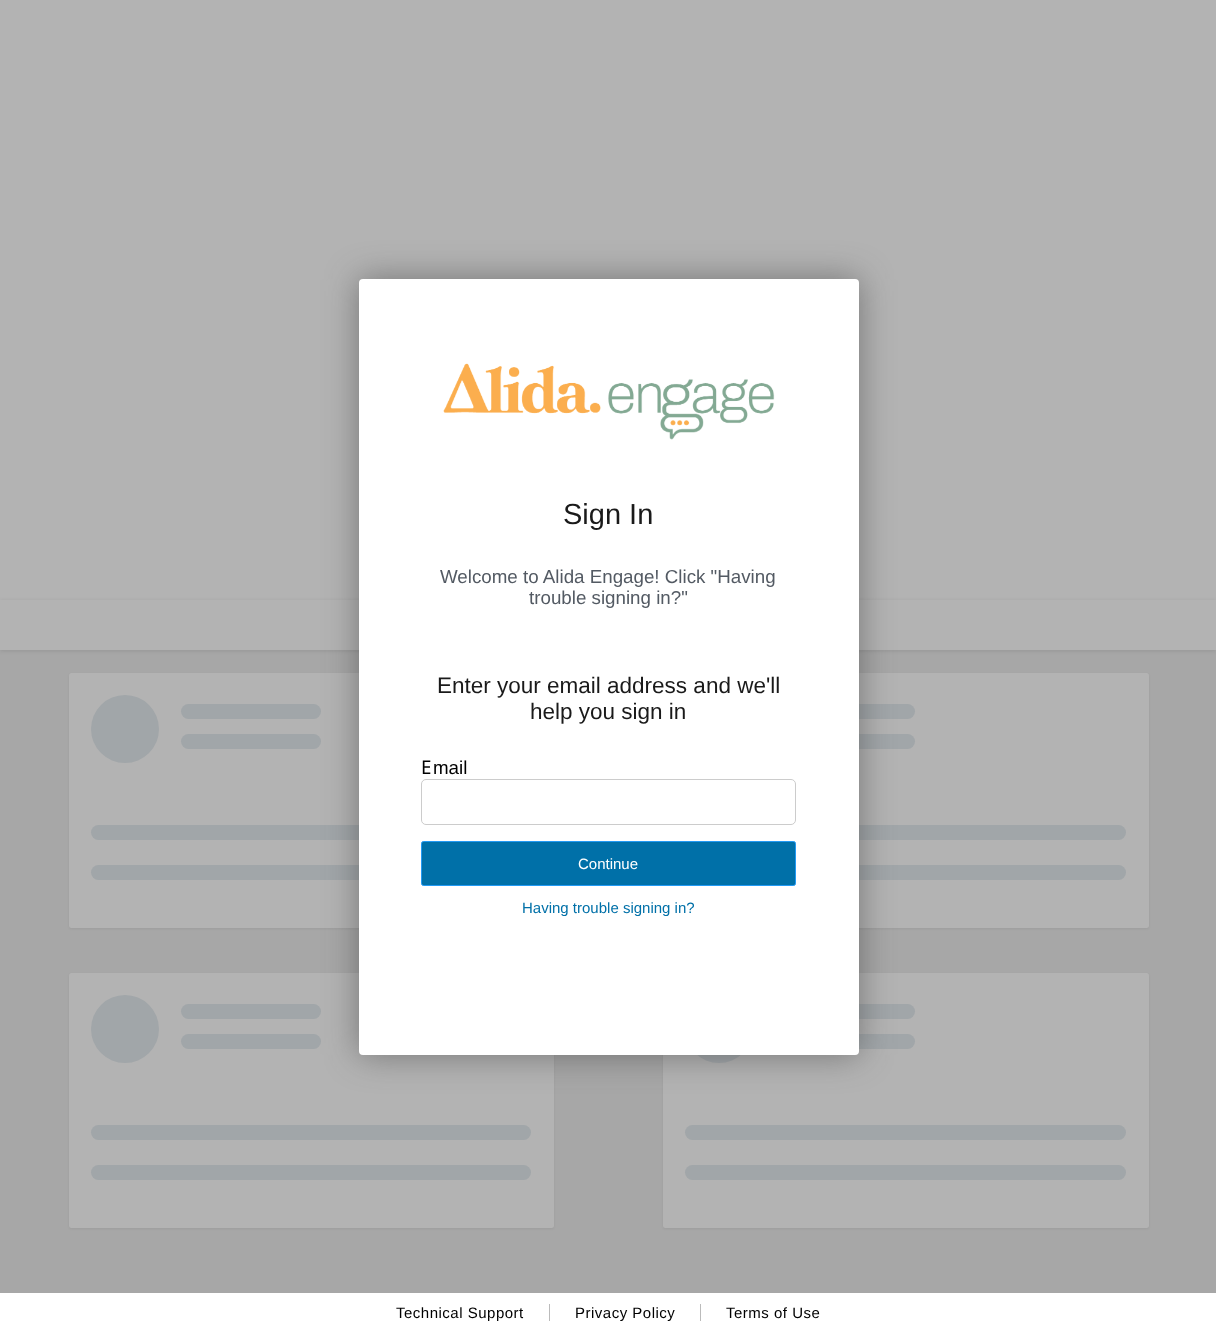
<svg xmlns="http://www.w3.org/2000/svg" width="1216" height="1332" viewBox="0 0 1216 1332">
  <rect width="100%" height="100%" fill="rgb(167,167,167)"/>
  <rect x="0" y="0" width="1216" height="600" fill="rgb(179,179,179)"/>
  <rect x="0" y="601" width="1216" height="50" fill="rgba(0,0,0,0.1)" filter="blur(2px)"/>
  <rect x="0" y="600" width="1216" height="50" fill="rgb(179,179,179)"/>
  <rect x="69" y="674" width="485" height="255" rx="2.5" fill="rgba(0,0,0,0.06)" filter="blur(1px)"/>
  <rect x="69" y="673" width="485" height="255" rx="2.5" fill="rgb(179,179,179)"/>
  <circle cx="125" cy="729" r="34" fill="rgb(161,166,169)"/>
  <rect x="181" y="704" width="140" height="15" rx="7.5" fill="rgb(161,166,169)"/>
  <rect x="181" y="734" width="140" height="15" rx="7.5" fill="rgb(161,166,169)"/>
  <rect x="91" y="825" width="440" height="15" rx="7.5" fill="rgb(161,166,169)"/>
  <rect x="91" y="865" width="440" height="15" rx="7.5" fill="rgb(161,166,169)"/>
  <rect x="663" y="674" width="486" height="255" rx="2.5" fill="rgba(0,0,0,0.06)" filter="blur(1px)"/>
  <rect x="663" y="673" width="486" height="255" rx="2.5" fill="rgb(179,179,179)"/>
  <rect x="775" y="704" width="140" height="15" rx="7.5" fill="rgb(161,166,169)"/>
  <rect x="775" y="734" width="140" height="15" rx="7.5" fill="rgb(161,166,169)"/>
  <rect x="685" y="825" width="441" height="15" rx="7.5" fill="rgb(161,166,169)"/>
  <rect x="685" y="865" width="441" height="15" rx="7.5" fill="rgb(161,166,169)"/>
  <rect x="69" y="974" width="485" height="255" rx="2.5" fill="rgba(0,0,0,0.06)" filter="blur(1px)"/>
  <rect x="69" y="973" width="485" height="255" rx="2.5" fill="rgb(179,179,179)"/>
  <circle cx="125" cy="1029" r="34" fill="rgb(161,166,169)"/>
  <rect x="181" y="1004" width="140" height="15" rx="7.5" fill="rgb(161,166,169)"/>
  <rect x="181" y="1034" width="140" height="15" rx="7.5" fill="rgb(161,166,169)"/>
  <rect x="91" y="1125" width="440" height="15" rx="7.5" fill="rgb(161,166,169)"/>
  <rect x="91" y="1165" width="440" height="15" rx="7.5" fill="rgb(161,166,169)"/>
  <rect x="663" y="974" width="486" height="255" rx="2.5" fill="rgba(0,0,0,0.06)" filter="blur(1px)"/>
  <rect x="663" y="973" width="486" height="255" rx="2.5" fill="rgb(179,179,179)"/>
  <circle cx="719" cy="1029" r="34" fill="rgb(161,166,169)"/>
  <rect x="775" y="1004" width="140" height="15" rx="7.5" fill="rgb(161,166,169)"/>
  <rect x="775" y="1034" width="140" height="15" rx="7.5" fill="rgb(161,166,169)"/>
  <rect x="685" y="1125" width="441" height="15" rx="7.5" fill="rgb(161,166,169)"/>
  <rect x="685" y="1165" width="441" height="15" rx="7.5" fill="rgb(161,166,169)"/>
  <rect x="359" y="279" width="500" height="776" rx="4" fill="rgba(53,53,53,0.5)" filter="blur(17px)"/>
  <rect x="359" y="279" width="500" height="776" rx="4" fill="rgb(255,255,255)"/>
  <image x="443" y="363" width="332" height="77" href="pic1.png"/>
  <text x="563" y="524" font-family="Liberation Sans" font-size="29" fill="rgb(26,26,26)">Sign In</text>
  <g font-family="Liberation Sans" font-size="18.75" fill="rgb(83,90,99)">
    <text x="440" y="583">Welcome to Alida Engage! Click "Having</text>
    <text x="529" y="604">trouble signing in?"</text>
  </g>
  <g font-family="Liberation Sans" font-size="22.5" fill="rgb(26,26,26)">
    <text x="437" y="693">Enter your email address and we'll</text>
    <text x="530" y="719">help you sign in</text>
  </g>
  <text x="421" y="774" font-family="Noto Sans" font-size="18.75" fill="rgb(0,0,0)">E</text>
  <text x="433" y="774" font-family="Liberation Sans" font-size="18.75" fill="rgb(0,0,0)">mail</text>
  <rect x="421.5" y="779.5" width="374" height="45" rx="4.5" fill="none" stroke="rgb(204,204,204)"/>
  <rect x="421.5" y="841.5" width="374" height="44" rx="2" fill="rgb(0,112,168)" stroke="rgb(34,154,244)"/>
  <text x="578" y="869" font-family="Liberation Sans" font-size="15" fill="rgb(255,255,255)">Continue</text>
  <text x="522" y="913" font-family="Liberation Sans" font-size="15" fill="rgb(0,112,168)">Having trouble signing in?</text>
  <rect x="0" y="1293" width="1216" height="39" fill="rgb(255,255,255)"/>
  <text x="396" y="1318" font-family="Liberation Sans" font-size="15" letter-spacing="0.5" fill="rgb(0,0,0)">Technical Support</text>
  <rect x="549" y="1304" width="1" height="17" fill="rgb(187,187,187)"/>
  <text x="575" y="1318" font-family="Liberation Sans" font-size="15" letter-spacing="0.5" fill="rgb(0,0,0)">Privacy Policy</text>
  <rect x="700" y="1304" width="1" height="17" fill="rgb(187,187,187)"/>
  <text x="726" y="1318" font-family="Liberation Sans" font-size="15" letter-spacing="0.5" fill="rgb(0,0,0)">Terms of Use</text>
</svg>
